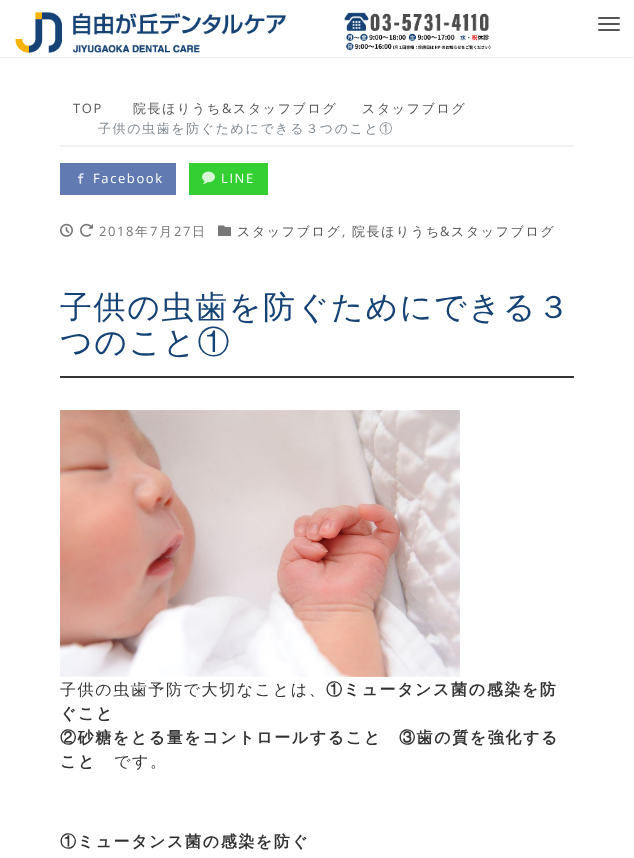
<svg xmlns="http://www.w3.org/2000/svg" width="634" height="858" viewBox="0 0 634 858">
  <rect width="100%" height="100%" fill="rgb(255,255,255)"/>
  <rect x="0" y="57" width="634" height="1" fill="rgb(241,241,241)"/>
  <image x="15" y="12" width="271" height="41" href="pic1.png"/>
  <image x="344" y="12" width="147" height="39" href="pic2.png"/>
  <rect x="598" y="17" width="22" height="2" rx="1" fill="rgb(85,85,85)"/>
  <rect x="598" y="23" width="22" height="2" rx="1" fill="rgb(85,85,85)"/>
  <rect x="598" y="29" width="22" height="2" rx="1" fill="rgb(85,85,85)"/>
  <rect x="60" y="145" width="514" height="2" fill="rgb(241,241,241)"/>
  <text x="73" y="113" font-family="Open Sans" font-size="13" letter-spacing="1.6" fill="rgb(85,85,85)">TOP</text>
  <text x="133" y="113" font-family="WenQuanYi Zen Hei" font-size="13" font-weight="500" letter-spacing="1.6" fill="rgb(85,85,85)">院長ほりうち</text>
  <text x="222" y="113" font-family="Open Sans" font-size="13" letter-spacing="1.6" fill="rgb(85,85,85)">&amp;</text>
  <g font-family="WenQuanYi Zen Hei" font-size="13" font-weight="500" letter-spacing="1.6" fill="rgb(85,85,85)">
    <text x="233" y="113">スタッフブログ</text>
    <text x="362" y="113">スタッフブログ</text>
  </g>
  <text x="98" y="133" font-family="WenQuanYi Zen Hei" font-size="13" font-weight="500" letter-spacing="1.6" fill="rgb(129,138,145)">子供の虫歯を防ぐためにできる３つのこと①</text>
  <rect x="60" y="163" width="116" height="32" fill="rgb(97,122,178)"/>
  <image x="77" y="173" width="7" height="11" href="pic3.png"/>
  <text x="93" y="183" font-family="Open Sans" font-size="13" letter-spacing="1.6" fill="rgb(255,255,255)">Facebook</text>
  <rect x="189" y="163" width="79" height="32" fill="rgb(51,207,51)"/>
  <image x="202" y="171" width="13" height="13" href="pic4.png"/>
  <text x="221" y="183" font-family="Open Sans" font-size="13" letter-spacing="1.6" fill="rgb(255,255,255)">LINE</text>
  <image x="60" y="223" width="13" height="14" href="pic5.png"/>
  <image x="80" y="223" width="13" height="14" href="pic6.png"/>
  <text x="99" y="236" font-family="Open Sans" font-size="13" letter-spacing="1.6" fill="rgb(119,119,119)">2018</text>
  <text x="135" y="236" font-family="WenQuanYi Zen Hei" font-size="13" font-weight="500" letter-spacing="1.6" fill="rgb(119,119,119)">年</text>
  <text x="150" y="236" font-family="Open Sans" font-size="13" letter-spacing="1.6" fill="rgb(119,119,119)">7</text>
  <text x="159" y="236" font-family="WenQuanYi Zen Hei" font-size="13" font-weight="500" letter-spacing="1.6" fill="rgb(119,119,119)">月</text>
  <text x="174" y="236" font-family="Open Sans" font-size="13" letter-spacing="1.6" fill="rgb(119,119,119)">27</text>
  <text x="192" y="236" font-family="WenQuanYi Zen Hei" font-size="13" font-weight="500" letter-spacing="1.6" fill="rgb(119,119,119)">日</text>
  <image x="218" y="225" width="13" height="11" href="pic7.png"/>
  <text x="237" y="236" font-family="WenQuanYi Zen Hei" font-size="13" font-weight="500" letter-spacing="1.6" fill="rgb(85,85,85)">スタッフブログ</text>
  <text x="342" y="236" font-family="Open Sans" font-size="13" letter-spacing="1.6" fill="rgb(119,119,119)">,</text>
  <text x="352" y="236" font-family="WenQuanYi Zen Hei" font-size="13" font-weight="500" letter-spacing="1.6" fill="rgb(85,85,85)">院長ほりうち</text>
  <text x="440" y="236" font-family="Open Sans" font-size="13" letter-spacing="1.6" fill="rgb(85,85,85)">&amp;</text>
  <text x="451" y="236" font-family="WenQuanYi Zen Hei" font-size="13" font-weight="500" letter-spacing="1.6" fill="rgb(85,85,85)">スタッフブログ</text>
  <rect x="60" y="376" width="514" height="2" fill="rgb(51,51,51)"/>
  <g font-family="WenQuanYi Zen Hei" font-size="32" font-weight="500" letter-spacing="1.6" fill="rgb(22,67,117)">
    <text>
      <tspan x="60" y="318">子供の虫歯を防ぐためにできる３</tspan>
      <tspan x="60" y="353">つのこと①</tspan>
    </text>
  </g>
  <image x="60" y="410" width="400" height="267" href="pic8.png"/>
  <text x="60" y="695" font-family="WenQuanYi Zen Hei" font-size="16" font-weight="500" letter-spacing="1.6" fill="rgb(51,51,51)">子供の虫歯予防で大切なことは、</text>
  <g font-family="WenQuanYi Zen Hei" font-size="16" font-weight="bold" letter-spacing="1.6" fill="rgb(51,51,51)">
    <text x="326" y="695">①ミュータンス菌の感染を防</text>
    <text>
      <tspan x="60" y="719">ぐこと</tspan>
      <tspan x="60" y="743">②砂糖をとる量をコントロールすること</tspan>
    </text>
    <text x="399" y="743">③歯の質を強化する</text>
    <text x="60" y="767">こと</text>
  </g>
  <text x="114" y="767" font-family="WenQuanYi Zen Hei" font-size="16" font-weight="500" letter-spacing="1.6" fill="rgb(51,51,51)">です。</text>
  <text x="60" y="847" font-family="WenQuanYi Zen Hei" font-size="16" font-weight="bold" letter-spacing="1.6" fill="rgb(51,51,51)">①ミュータンス菌の感染を防ぐ</text>
</svg>
